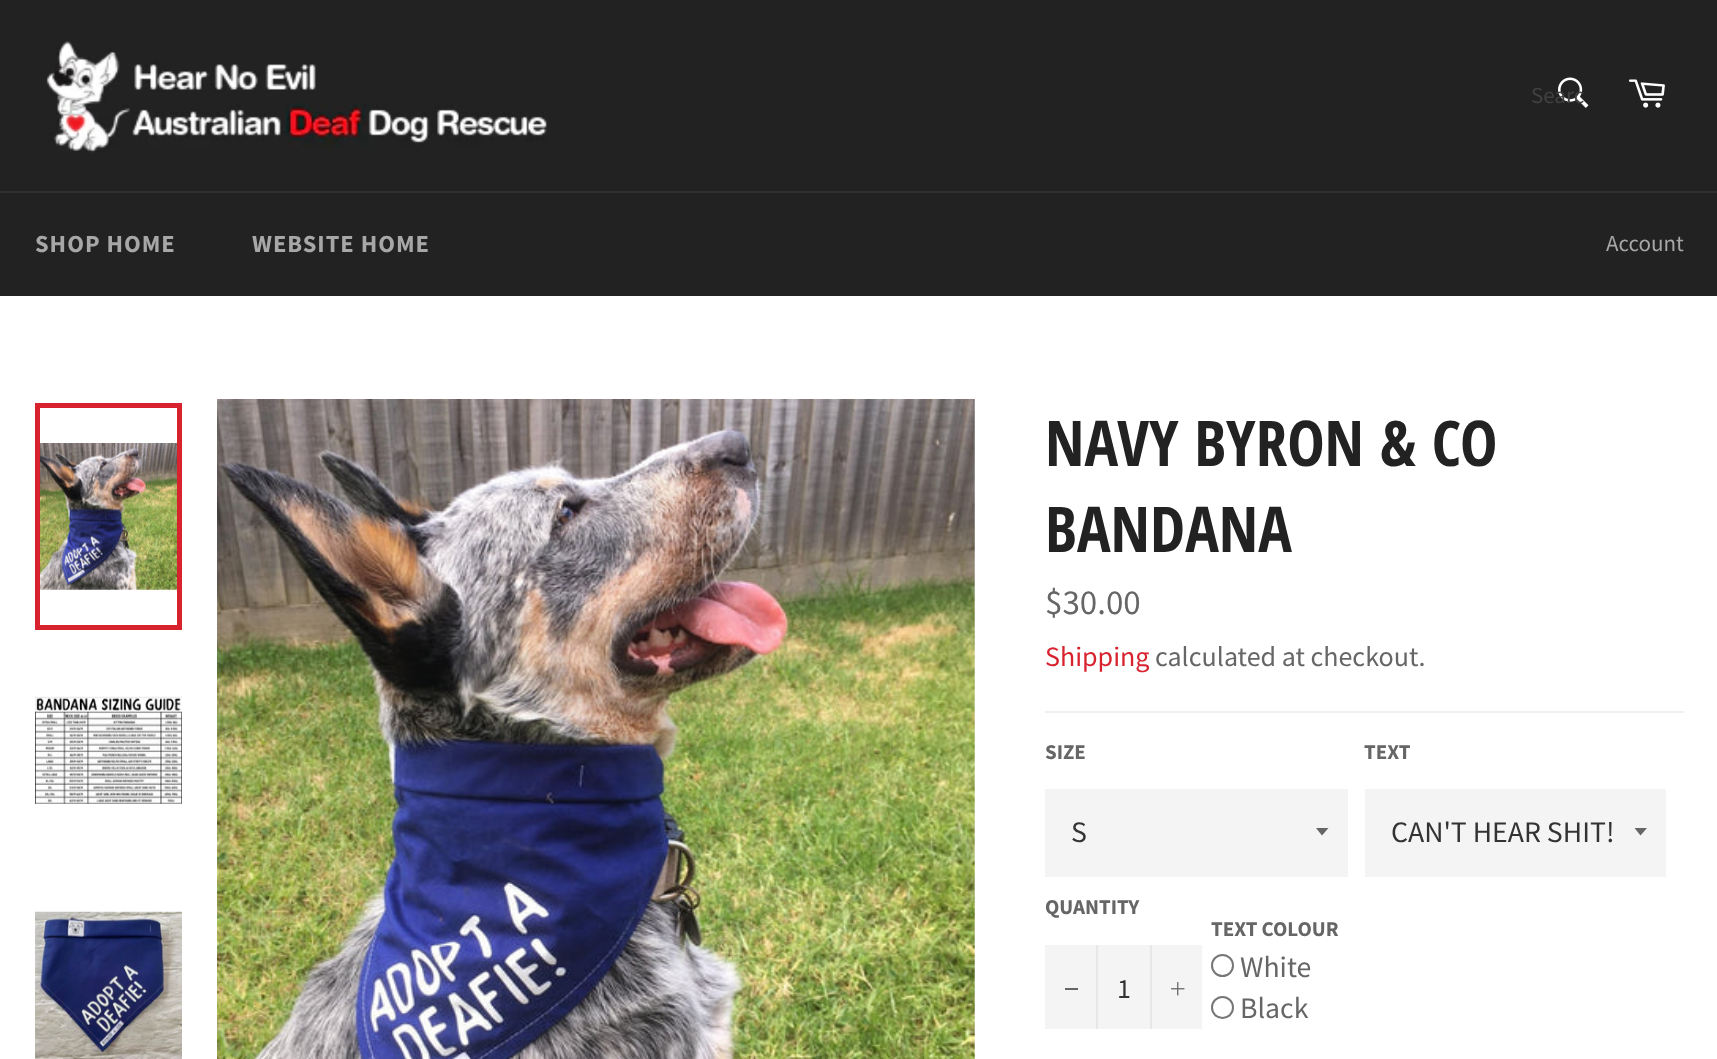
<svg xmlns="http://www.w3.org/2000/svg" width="1717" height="1059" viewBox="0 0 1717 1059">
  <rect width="100%" height="100%" fill="rgb(34,34,34)"/>
  <image x="46" y="41" width="501" height="112" href="pic1.png"/>
  <image x="1558" y="77" width="31" height="31" href="pic2.png"/>
  <text x="1531" y="103" font-family="Source Sans Pro" font-size="23" fill="rgb(64,64,64)">Searc</text>
  <image x="1628" y="79" width="37" height="29" href="pic3.png"/>
  <rect x="0" y="191" width="1717" height="2" fill="rgb(47,47,47)"/>
  <g font-family="Source Sans Pro" font-size="24.5" font-weight="bold" letter-spacing="1" fill="rgb(167,167,167)">
    <text x="35" y="252">SHOP HOME</text>
    <text x="252" y="252">WEBSITE HOME</text>
  </g>
  <text x="1606" y="251" font-family="Source Sans Pro" font-size="23" fill="rgb(167,167,167)">Account</text>
  <rect x="0" y="296" width="1717" height="763" fill="rgb(255,255,255)"/>
  <image x="40" y="443" width="137" height="147" href="pic4.png"/>
  <rect x="37.5" y="405.5" width="142" height="222" fill="none" stroke="rgb(216,35,47)" stroke-width="5"/>
  <image x="35" y="696" width="147" height="108" href="pic5.png"/>
  <image x="35" y="911" width="147" height="148" href="pic6.png"/>
  <image x="217" y="399" width="758" height="660" href="pic7.png"/>
  <g font-family="Open Sans Condensed" font-size="63" font-weight="bold" fill="rgb(34,34,34)">
    <text>
      <tspan x="1045" y="466">NAVY BYRON &amp; CO</tspan>
      <tspan x="1045" y="552">BANDANA</tspan>
    </text>
  </g>
  <text x="1045" y="614" font-family="Source Sans Pro" font-size="35" fill="rgb(102,102,102)">$30.00</text>
  <text x="1045" y="666" font-family="Source Sans Pro" font-size="28" fill="rgb(216,35,47)">Shipping</text>
  <text x="1155" y="666" font-family="Source Sans Pro" font-size="28" fill="rgb(102,102,102)">calculated at checkout.</text>
  <rect x="1045" y="711" width="639" height="2" fill="rgb(240,240,240)"/>
  <text x="1045" y="759" font-family="Source Sans Pro" font-size="21" font-weight="bold" fill="rgb(102,102,102)">SIZE</text>
  <rect x="1045" y="789" width="303" height="88" fill="rgb(244,244,244)"/>
  <path d="M1316 828L1322 835.5L1328.5 828Z" fill="rgb(102,102,102)"/>
  <text x="1071" y="842" font-family="Source Sans Pro" font-size="29.75" fill="rgb(51,51,51)">S</text>
  <text x="1364" y="759" font-family="Source Sans Pro" font-size="21" font-weight="bold" fill="rgb(102,102,102)">TEXT</text>
  <rect x="1365" y="789" width="301" height="88" fill="rgb(244,244,244)"/>
  <path d="M1634.5 828L1640.5 835.5L1647 828Z" fill="rgb(102,102,102)"/>
  <text x="1391" y="842" font-family="Source Sans Pro" font-size="29.75" fill="rgb(51,51,51)">CAN'T HEAR SHIT!</text>
  <text x="1045" y="914" font-family="Source Sans Pro" font-size="21" font-weight="bold" fill="rgb(102,102,102)">QUANTITY</text>
  <rect x="1045" y="945" width="157" height="84" fill="rgb(244,244,244)"/>
  <rect x="1096" y="945" width="2" height="84" fill="rgb(231,231,231)"/>
  <rect x="1065" y="988" width="13" height="2" fill="rgb(102,102,102)"/>
  <text x="1117" y="998" font-family="Source Sans Pro" font-size="28" fill="rgb(51,51,51)">1</text>
  <rect x="1150" y="945" width="2" height="84" fill="rgb(231,231,231)"/>
  <image x="1171" y="982" width="14" height="14" href="pic8.png"/>
  <text x="1211" y="936" font-family="Source Sans Pro" font-size="21" font-weight="bold" fill="rgb(102,102,102)">TEXT COLOUR</text>
  <circle cx="1222.5" cy="965.5" r="10.5" fill="none" stroke="rgb(118,118,118)" stroke-width="2"/>
  <text x="1240" y="977" font-family="Source Sans Pro" font-size="29.75" fill="rgb(102,102,102)">White</text>
  <circle cx="1222.5" cy="1007.5" r="10.5" fill="none" stroke="rgb(118,118,118)" stroke-width="2"/>
  <text x="1240" y="1018" font-family="Source Sans Pro" font-size="29.75" fill="rgb(102,102,102)">Black</text>
</svg>
